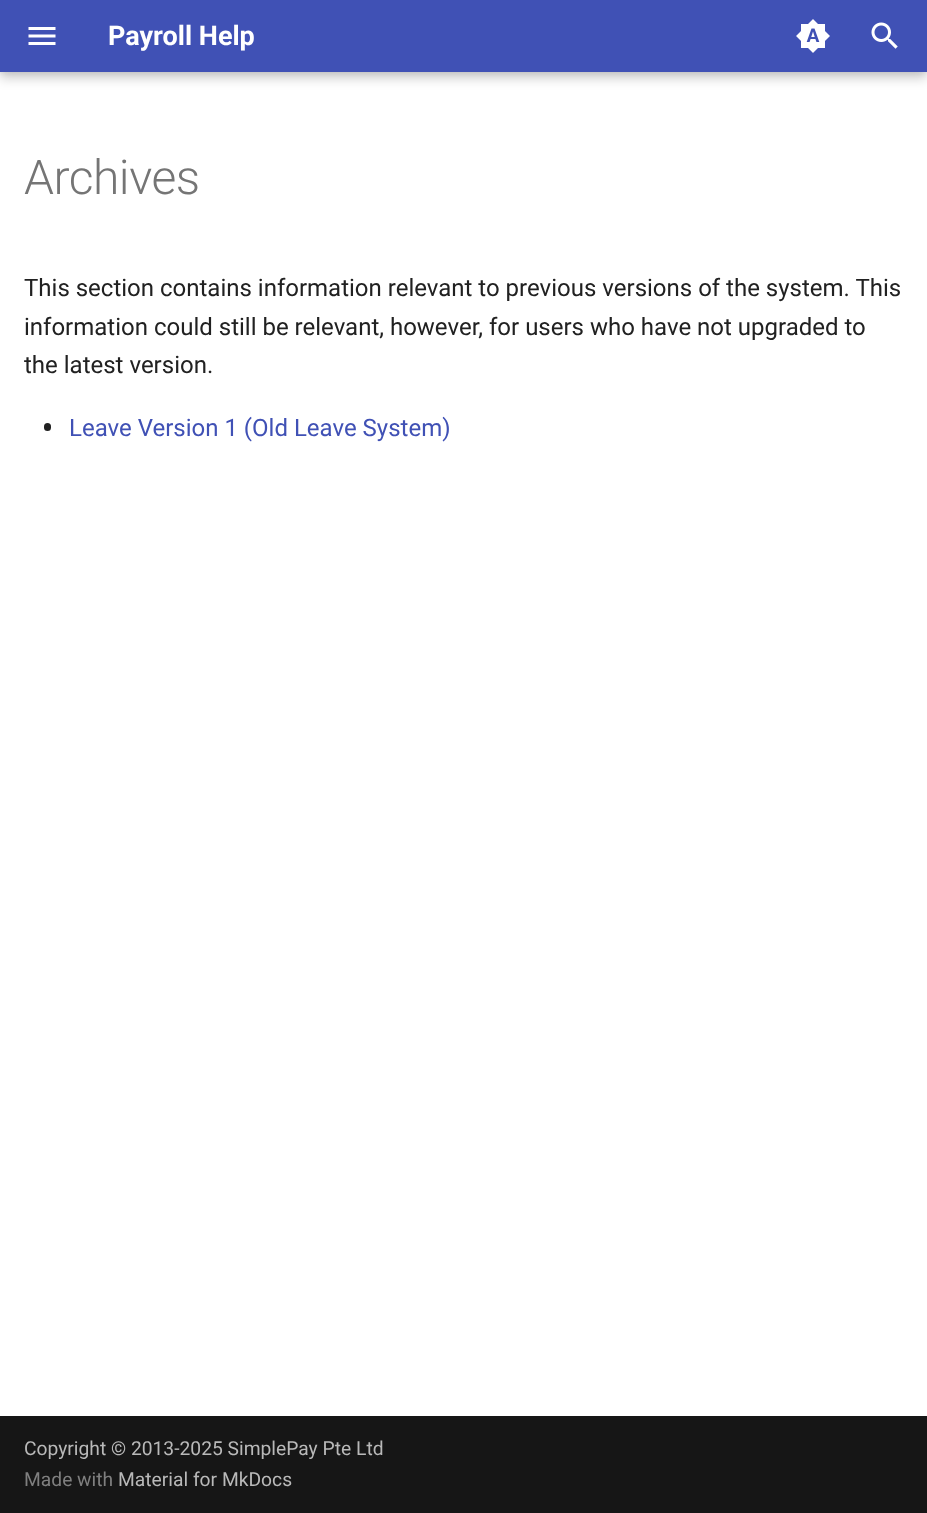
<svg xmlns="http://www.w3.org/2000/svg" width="927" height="1513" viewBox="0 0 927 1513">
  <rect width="100%" height="100%" fill="rgb(255,255,255)"/>
  <rect x="0" y="6" width="927" height="72" fill="rgba(0,0,0,0.2)" filter="blur(6px)"/>
  <rect x="0" y="0" width="927" height="72" fill="rgba(0,0,0,0.1)" filter="blur(3px)"/>
  <rect x="0" y="0" width="927" height="72" fill="rgb(64,81,181)"/>
  <image x="28" y="27" width="28" height="18" href="pic1.png"/>
  <text x="108" y="45" font-family="Roboto" font-size="27" font-weight="bold" fill="rgb(255,255,255)">Payroll Help</text>
  <image x="796" y="19" width="34" height="34" href="pic2.png"/>
  <image x="871" y="22" width="27" height="27" href="pic3.png"/>
  <text x="24" y="194" font-family="Roboto" font-size="48" font-weight="300" letter-spacing="-0.5" fill="rgb(117,117,117)">Archives</text>
  <g font-family="Roboto" font-size="24" fill="rgb(33,33,33)">
    <text>
      <tspan x="24" y="296">This section contains information relevant to previous versions of the system. This</tspan>
      <tspan x="24" y="335">information could still be relevant, however, for users who have not upgraded to</tspan>
      <tspan x="24" y="373">the latest version.</tspan>
    </text>
  </g>
  <rect x="44" y="423" width="7" height="8" rx="3.5" fill="rgb(33,33,33)"/>
  <text x="69" y="436" font-family="Roboto" font-size="24" fill="rgb(64,81,181)">Leave Version 1 (Old Leave System)</text>
  <rect x="0" y="1416" width="927" height="97" fill="rgb(22,22,22)"/>
  <text x="24" y="1455" font-family="Roboto" font-size="19.25" fill="rgb(185,185,185)">Copyright © 2013-2025 SimplePay Pte Ltd</text>
  <text x="24" y="1486" font-family="Roboto" font-size="19.25" fill="rgb(127,127,127)">Made with</text>
  <text x="118" y="1486" font-family="Roboto" font-size="19.25" fill="rgb(185,185,185)">Material for MkDocs</text>
</svg>
